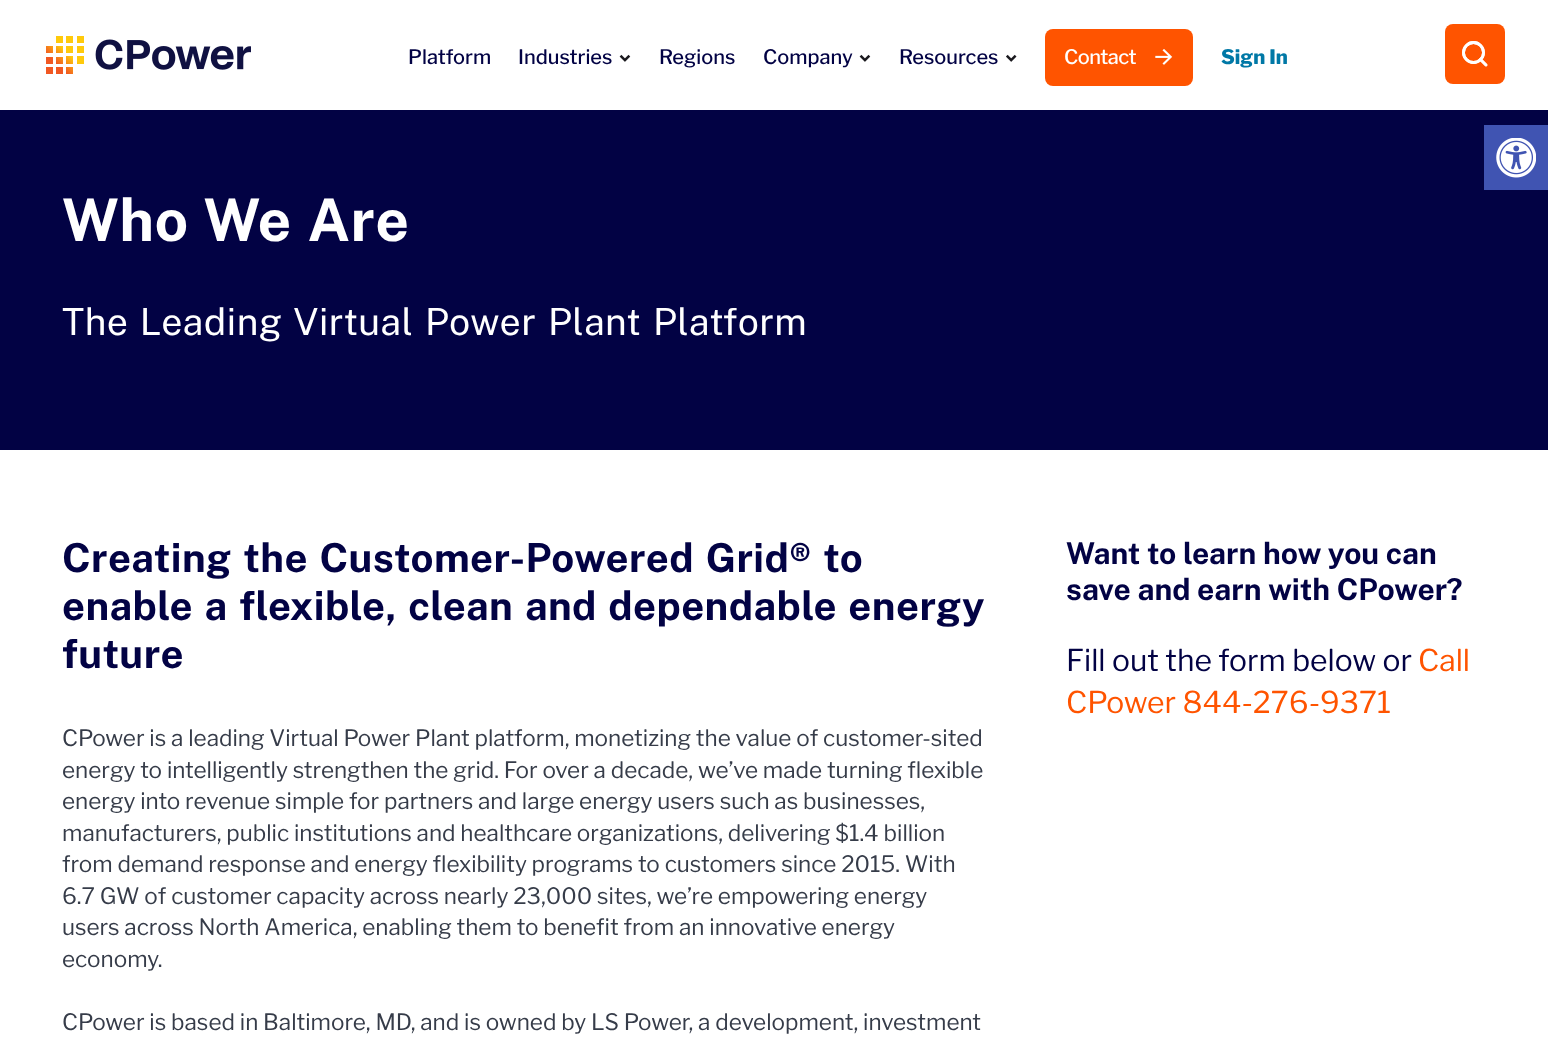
<svg xmlns="http://www.w3.org/2000/svg" width="1548" height="1043" viewBox="0 0 1548 1043">
  <rect width="100%" height="100%" fill="rgb(255,255,255)"/>
  <image x="46" y="36" width="205" height="38" href="pic1.png"/>
  <g font-family="Libre Franklin" font-size="20" font-weight="500" fill="rgb(2,2,68)">
    <text x="408" y="64">Platform</text>
    <text x="518" y="64">Industries</text>
  </g>
  <image x="619" y="54" width="12" height="8" href="pic2.png"/>
  <g font-family="Libre Franklin" font-size="20" font-weight="500" fill="rgb(2,2,68)">
    <text x="659" y="64">Regions</text>
    <text x="763" y="64">Company</text>
  </g>
  <image x="859" y="54" width="12" height="8" href="pic2.png"/>
  <text x="899" y="64" font-family="Libre Franklin" font-size="20" font-weight="500" fill="rgb(2,2,68)">Resources</text>
  <image x="1006" y="54" width="11" height="8" href="pic3.png"/>
  <rect x="1045" y="29" width="148" height="57" rx="8" fill="rgb(255,84,0)"/>
  <text x="1064" y="64" font-family="Libre Franklin" font-size="20" font-weight="500" letter-spacing="-0.5" fill="rgb(255,255,255)">Contact</text>
  <image x="1155" y="49" width="18" height="16" href="pic4.png"/>
  <text x="1221" y="64" font-family="Libre Franklin" font-size="20" font-weight="800" fill="rgb(0,120,166)">Sign In</text>
  <rect x="1445" y="24" width="60" height="60" rx="8" fill="rgb(255,84,0)"/>
  <circle cx="1473.5" cy="52.5" r="10" fill="none" stroke="rgb(255,255,255)" stroke-width="2.8"/>
  <path d="M1480.5 59.5L1486 65" fill="none" stroke="rgb(255,255,255)" stroke-width="2.8" stroke-linecap="round" stroke-linejoin="round"/>
  <circle cx="1473.5" cy="52.5" r="10" fill="none" stroke="rgb(255,255,255)" stroke-width="2.8"/>
  <path d="M1480.5 59.5L1486 65" fill="none" stroke="rgb(255,255,255)" stroke-width="2.8" stroke-linecap="round" stroke-linejoin="round"/>
  <rect x="0" y="110" width="1548" height="340" fill="rgb(2,2,68)"/>
  <text x="62" y="241" word-spacing="2.25" font-family="Public Sans" font-size="58.75" font-weight="bold" letter-spacing="0.4" fill="rgb(255,255,255)">Who We Are</text>
  <text x="62" y="335" word-spacing="2.25" font-family="Public Sans" font-size="37.5" letter-spacing="0.4" fill="rgb(255,255,255)">The Leading Virtual Power Plant Platform</text>
  <g font-family="Public Sans" font-size="40" font-weight="bold" letter-spacing="0.4" fill="rgb(2,2,68)">
    <text>
      <tspan x="62" y="572" word-spacing="2.25">Creating the Customer-Powered Grid® to</tspan>
      <tspan x="62" y="620" word-spacing="2.25">enable a flexible, clean and dependable energy</tspan>
      <tspan x="62" y="668">future</tspan>
    </text>
  </g>
  <g font-family="Libre Franklin" font-size="22.5" fill="rgb(54,60,73)">
    <text>
      <tspan x="62" y="746">CPower is a leading Virtual Power Plant platform, monetizing the value of customer-sited</tspan>
      <tspan x="62" y="778">energy to intelligently strengthen the grid. For over a decade, we’ve made turning flexible</tspan>
      <tspan x="62" y="809">energy into revenue simple for partners and large energy users such as businesses,</tspan>
      <tspan x="62" y="841">manufacturers, public institutions and healthcare organizations, delivering $1.4 billion</tspan>
      <tspan x="62" y="872">from demand response and energy flexibility programs to customers since 2015. With</tspan>
      <tspan x="62" y="904">6.7 GW of customer capacity across nearly 23,000 sites, we’re empowering energy</tspan>
      <tspan x="62" y="935">users across North America, enabling them to benefit from an innovative energy</tspan>
      <tspan x="62" y="967">economy.</tspan>
    </text>
    <text x="62" y="1030">CPower is based in Baltimore, MD, and is owned by LS Power, a development, investment</text>
  </g>
  <g font-family="Public Sans" font-size="30" font-weight="bold" fill="rgb(2,2,68)">
    <text>
      <tspan x="1066" y="564">Want to learn how you can</tspan>
      <tspan x="1066" y="600">save and earn with CPower?</tspan>
    </text>
  </g>
  <text x="1066" y="671" font-family="Libre Franklin" font-size="30" fill="rgb(2,2,68)">Fill out the form below or</text>
  <g font-family="Libre Franklin" font-size="30" fill="rgb(255,84,0)">
    <text x="1418" y="671">Call</text>
    <text x="1066" y="713">CPower 844-276-9371</text>
  </g>
  <rect x="1484" y="125" width="64" height="65" fill="rgb(64,84,178)"/>
  <image x="1496" y="138" width="40" height="40" href="pic5.png"/>
</svg>
